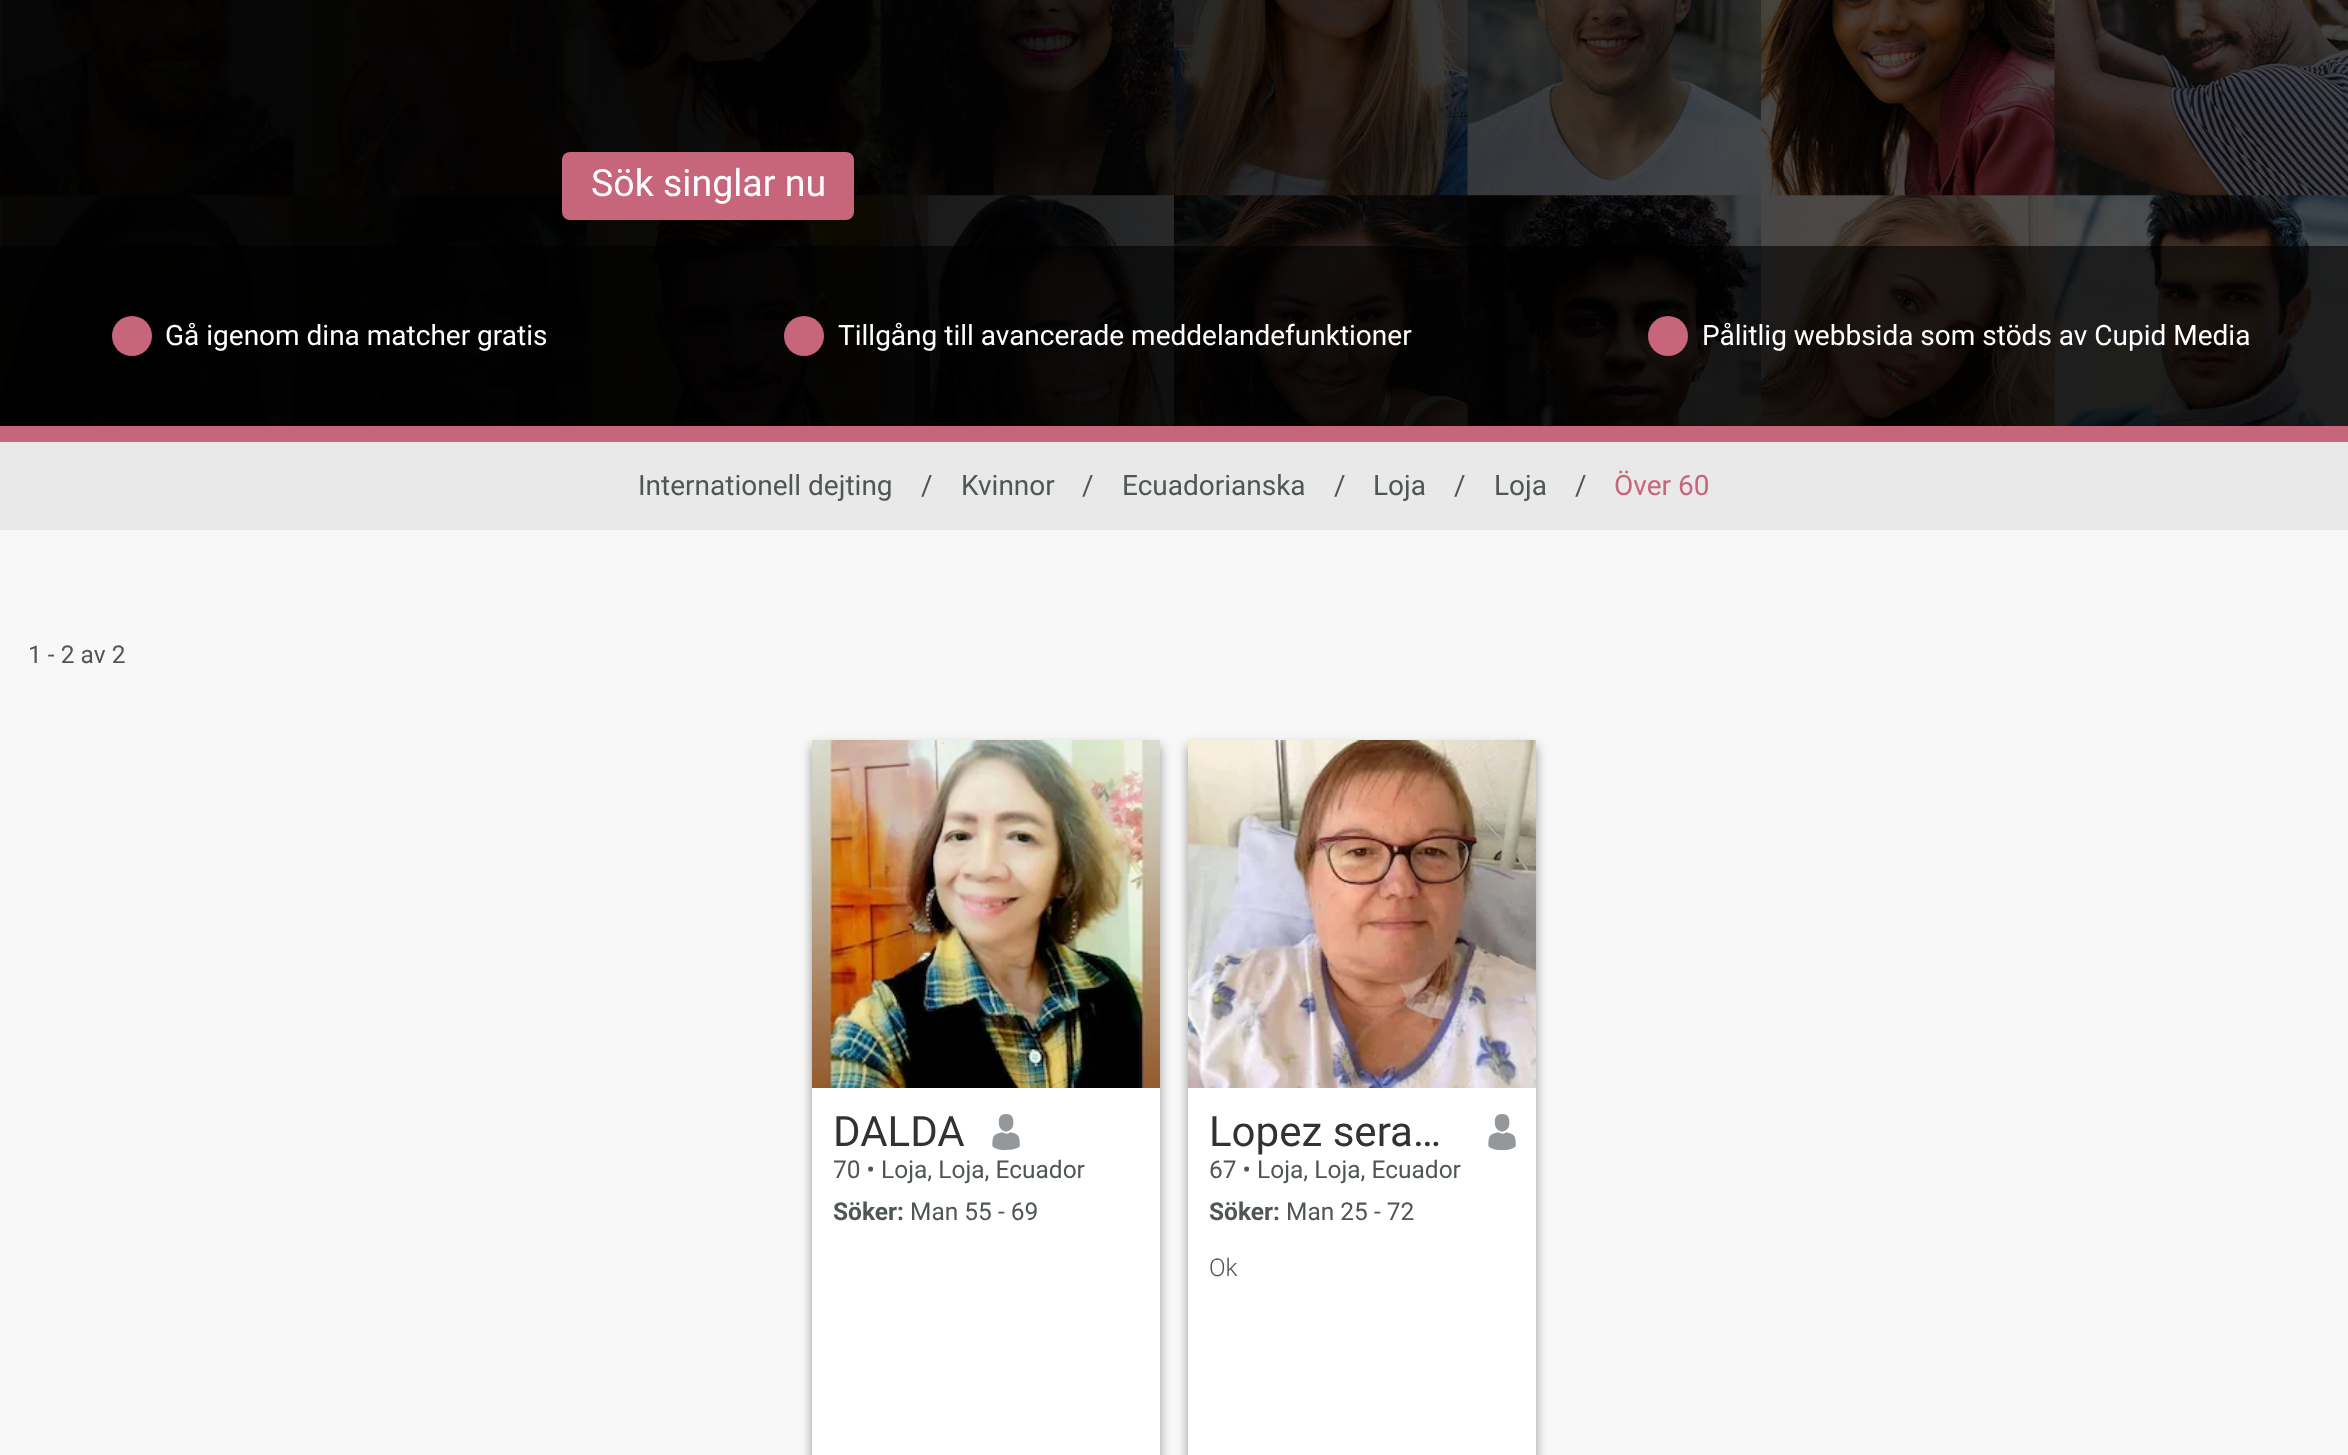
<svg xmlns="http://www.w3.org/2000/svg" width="2348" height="1455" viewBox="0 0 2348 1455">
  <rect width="100%" height="100%" fill="rgb(248,248,248)"/>
  <image x="0" y="0" width="2348" height="426" href="pic1.png"/>
  <rect x="562" y="152" width="292" height="68" rx="8" fill="rgb(199,101,123)"/>
  <text x="591" y="196" font-family="Roboto" font-size="37.5" fill="rgb(255,255,255)">Sök singlar nu</text>
  <rect x="0" y="246" width="2348" height="180" fill="rgba(0,0,0,0.6)"/>
  <circle cx="132" cy="336" r="20" fill="rgb(199,101,123)"/>
  <text x="165" y="345" font-family="Roboto" font-size="28" fill="rgb(255,255,255)">Gå igenom dina matcher gratis</text>
  <circle cx="804" cy="336" r="20" fill="rgb(199,101,123)"/>
  <text x="838" y="345" font-family="Roboto" font-size="28" fill="rgb(255,255,255)">Tillgång till avancerade meddelandefunktioner</text>
  <circle cx="1668" cy="336" r="20" fill="rgb(199,101,123)"/>
  <text x="1702" y="345" font-family="Roboto" font-size="28" fill="rgb(255,255,255)">Pålitlig webbsida som stöds av Cupid Media</text>
  <rect x="0" y="426" width="2348" height="16" fill="rgb(199,101,123)"/>
  <rect x="0" y="442" width="2348" height="88" fill="rgb(233,233,233)"/>
  <g font-family="Roboto" font-size="28" fill="rgb(80,86,86)">
    <text x="638" y="495">Internationell dejting</text>
    <text x="921" y="495">/</text>
    <text x="961" y="495">Kvinnor</text>
    <text x="1082" y="495">/</text>
    <text x="1122" y="495">Ecuadorianska</text>
    <text x="1334" y="495">/</text>
    <text x="1373" y="495">Loja</text>
    <text x="1454" y="495">/</text>
    <text x="1494" y="495">Loja</text>
    <text x="1575" y="495">/</text>
  </g>
  <text x="1614" y="495" font-family="Roboto" font-size="28" fill="rgb(199,101,123)">Över 60</text>
  <text x="28" y="663" font-family="Roboto" font-size="24.5" fill="rgb(80,86,86)">1 - 2 av 2</text>
  <rect x="812" y="746" width="348" height="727" fill="rgba(0,0,0,0.4)" filter="blur(6px)"/>
  <rect x="812" y="1088" width="348" height="367" fill="rgb(255,255,255)"/>
  <image x="812" y="740" width="348" height="348" href="pic2.png"/>
  <text x="833" y="1146" font-family="Roboto" font-size="42" fill="rgb(50,50,50)">DALDA</text>
  <image x="992" y="1114" width="28" height="36" href="pic3.png"/>
  <text x="833" y="1178" font-family="Roboto" font-size="24.5" fill="rgb(80,86,86)">70 • Loja, Loja, Ecuador</text>
  <text x="833" y="1220" font-family="Roboto" font-size="24.5" font-weight="bold" fill="rgb(80,86,86)">Söker:</text>
  <text x="910" y="1220" font-family="Roboto" font-size="24.5" fill="rgb(80,86,86)">Man 55 - 69</text>
  <rect x="1188" y="746" width="348" height="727" fill="rgba(0,0,0,0.4)" filter="blur(6px)"/>
  <rect x="1188" y="1088" width="348" height="367" fill="rgb(255,255,255)"/>
  <image x="1188" y="740" width="348" height="348" href="pic4.png"/>
  <text x="1209" y="1146" font-family="Roboto" font-size="42" fill="rgb(50,50,50)">Lopez sera…</text>
  <image x="1488" y="1114" width="28" height="36" href="pic5.png"/>
  <text x="1209" y="1178" font-family="Roboto" font-size="24.5" fill="rgb(80,86,86)">67 • Loja, Loja, Ecuador</text>
  <text x="1209" y="1220" font-family="Roboto" font-size="24.5" font-weight="bold" fill="rgb(80,86,86)">Söker:</text>
  <text x="1286" y="1220" font-family="Roboto" font-size="24.5" fill="rgb(80,86,86)">Man 25 - 72</text>
  <text x="1209" y="1276" font-family="Roboto" font-size="24.5" font-weight="300" fill="rgb(80,86,86)">Ok</text>
</svg>
